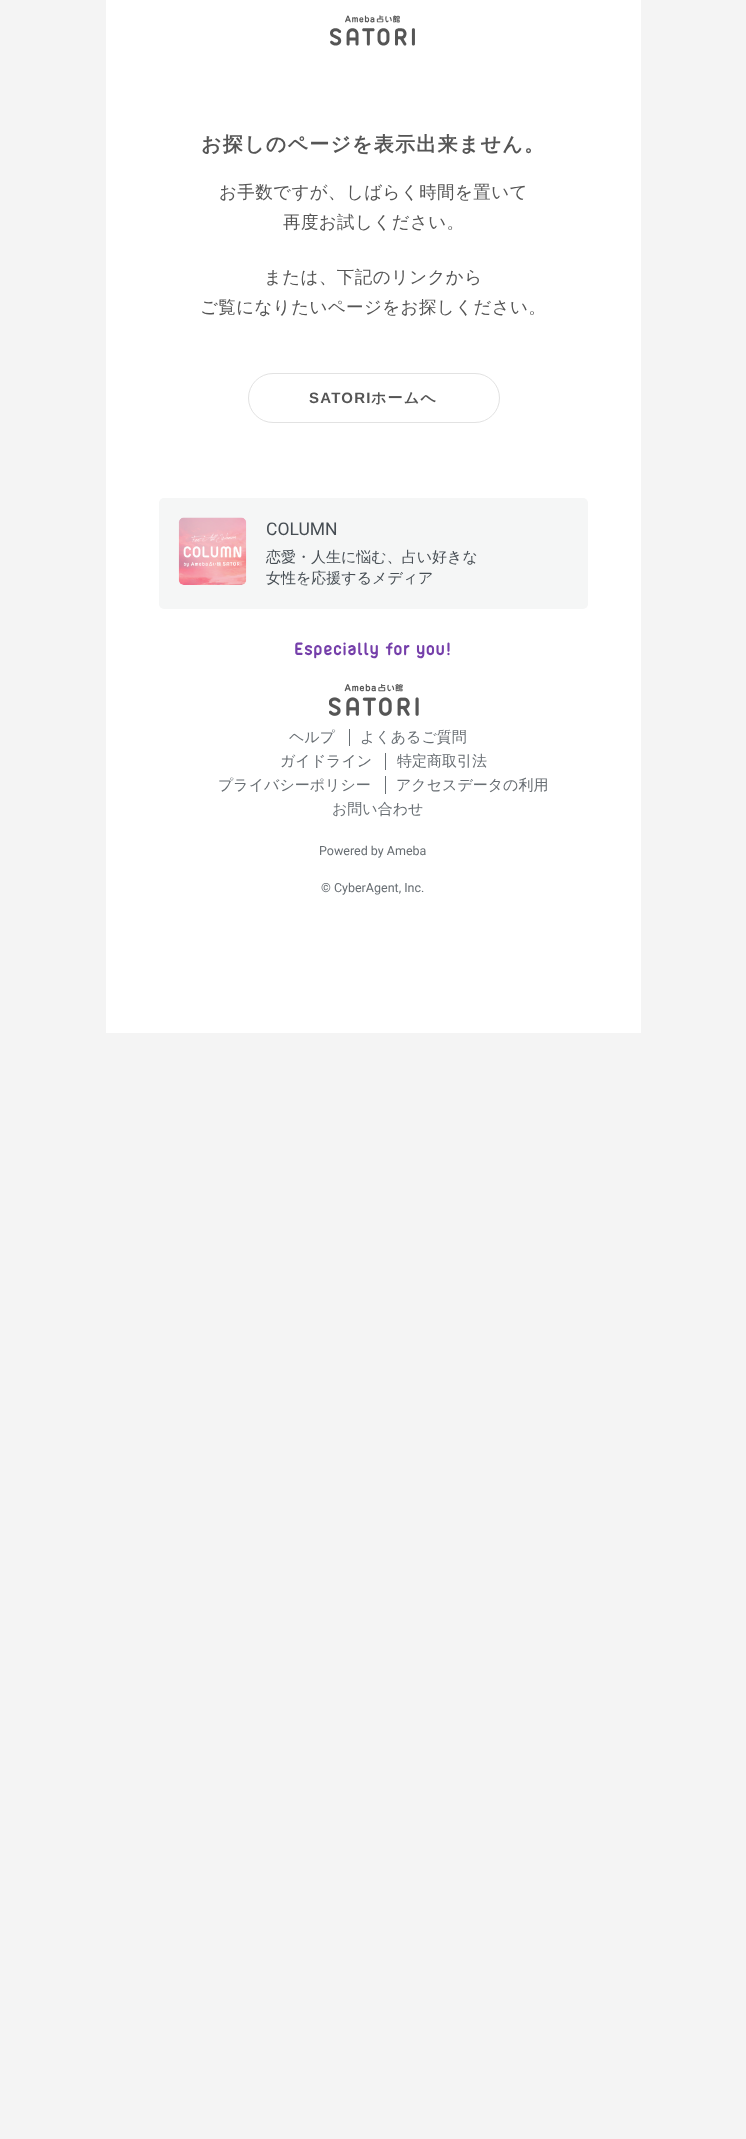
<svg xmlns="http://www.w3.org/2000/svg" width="746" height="2139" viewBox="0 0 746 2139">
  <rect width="100%" height="100%" fill="rgb(244,244,244)"/>
  <rect x="106" y="0" width="535" height="1033" fill="rgb(255,255,255)"/>
  <image x="330" y="15" width="85" height="31" href="pic1.png"/>
  <text x="201" y="151" font-family="WenQuanYi Zen Hei" font-size="20" font-weight="bold" letter-spacing="1.25" fill="rgb(85,85,85)">お探しのページを表示出来ません。</text>
  <g font-family="WenQuanYi Zen Hei" font-size="17.5" font-weight="500" letter-spacing="0.4" fill="rgb(85,85,85)">
    <text x="219" y="198">お手数ですが、しばらく時間を置いて</text>
    <text x="283" y="228">再度お試しください。</text>
    <text x="264" y="283">または、下記のリンクから</text>
    <text x="200" y="313">ご覧になりたいページをお探しください。</text>
  </g>
  <rect x="248.5" y="373.5" width="251" height="49" rx="24.5" fill="none" stroke="rgb(226,226,226)"/>
  <text x="309" y="403" font-family="Liberation Sans" font-size="15" font-weight="bold" letter-spacing="1.25" fill="rgb(85,85,85)">SATORI</text>
  <text x="371" y="403" font-family="WenQuanYi Zen Hei" font-size="15" font-weight="bold" letter-spacing="1.25" fill="rgb(85,85,85)">ホームへ</text>
  <rect x="159" y="498" width="429" height="111" rx="5" fill="rgb(245,246,246)"/>
  <image x="178" y="517" width="69" height="68" href="pic2.png"/>
  <text x="266" y="535" font-family="Roboto" font-size="17.5" fill="rgb(70,77,83)">COLUMN</text>
  <g font-family="WenQuanYi Zen Hei" font-size="15" font-weight="500" fill="rgb(70,77,83)">
    <text>
      <tspan x="266" y="562">恋愛・人生に悩む、占い好きな</tspan>
      <tspan x="266" y="583">女性を応援するメディア</tspan>
    </text>
  </g>
  <text x="294" y="655" font-family="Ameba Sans" font-size="17.5" letter-spacing="0.6" fill="rgb(117,63,170)">Especially for you!</text>
  <image x="329" y="684" width="90" height="32" href="pic3.png"/>
  <g font-family="WenQuanYi Zen Hei" font-size="15" font-weight="500" fill="rgb(104,110,115)">
    <text x="289" y="742">ヘルプ</text>
    <text x="360" y="742">よくあるご質問</text>
  </g>
  <rect x="349" y="729" width="1" height="17" fill="rgb(104,110,115)"/>
  <g font-family="WenQuanYi Zen Hei" font-size="15" font-weight="500" fill="rgb(104,110,115)">
    <text x="280" y="766">ガイドライン</text>
    <text x="397" y="766">特定商取引法</text>
  </g>
  <rect x="385" y="753" width="1" height="17" fill="rgb(104,110,115)"/>
  <g font-family="WenQuanYi Zen Hei" font-size="15" font-weight="500" fill="rgb(104,110,115)">
    <text x="218" y="790">プライバシーポリシー</text>
    <text x="396" y="790">アクセスデータの利用</text>
  </g>
  <rect x="385" y="776" width="1" height="18" fill="rgb(104,110,115)"/>
  <text x="332" y="814" font-family="WenQuanYi Zen Hei" font-size="15" font-weight="500" fill="rgb(104,110,115)">お問い合わせ</text>
  <g font-family="Roboto" font-size="12.5" fill="rgb(104,110,115)">
    <text x="319" y="855">Powered by Ameba</text>
    <text x="321" y="892">© CyberAgent, Inc.</text>
  </g>
</svg>
